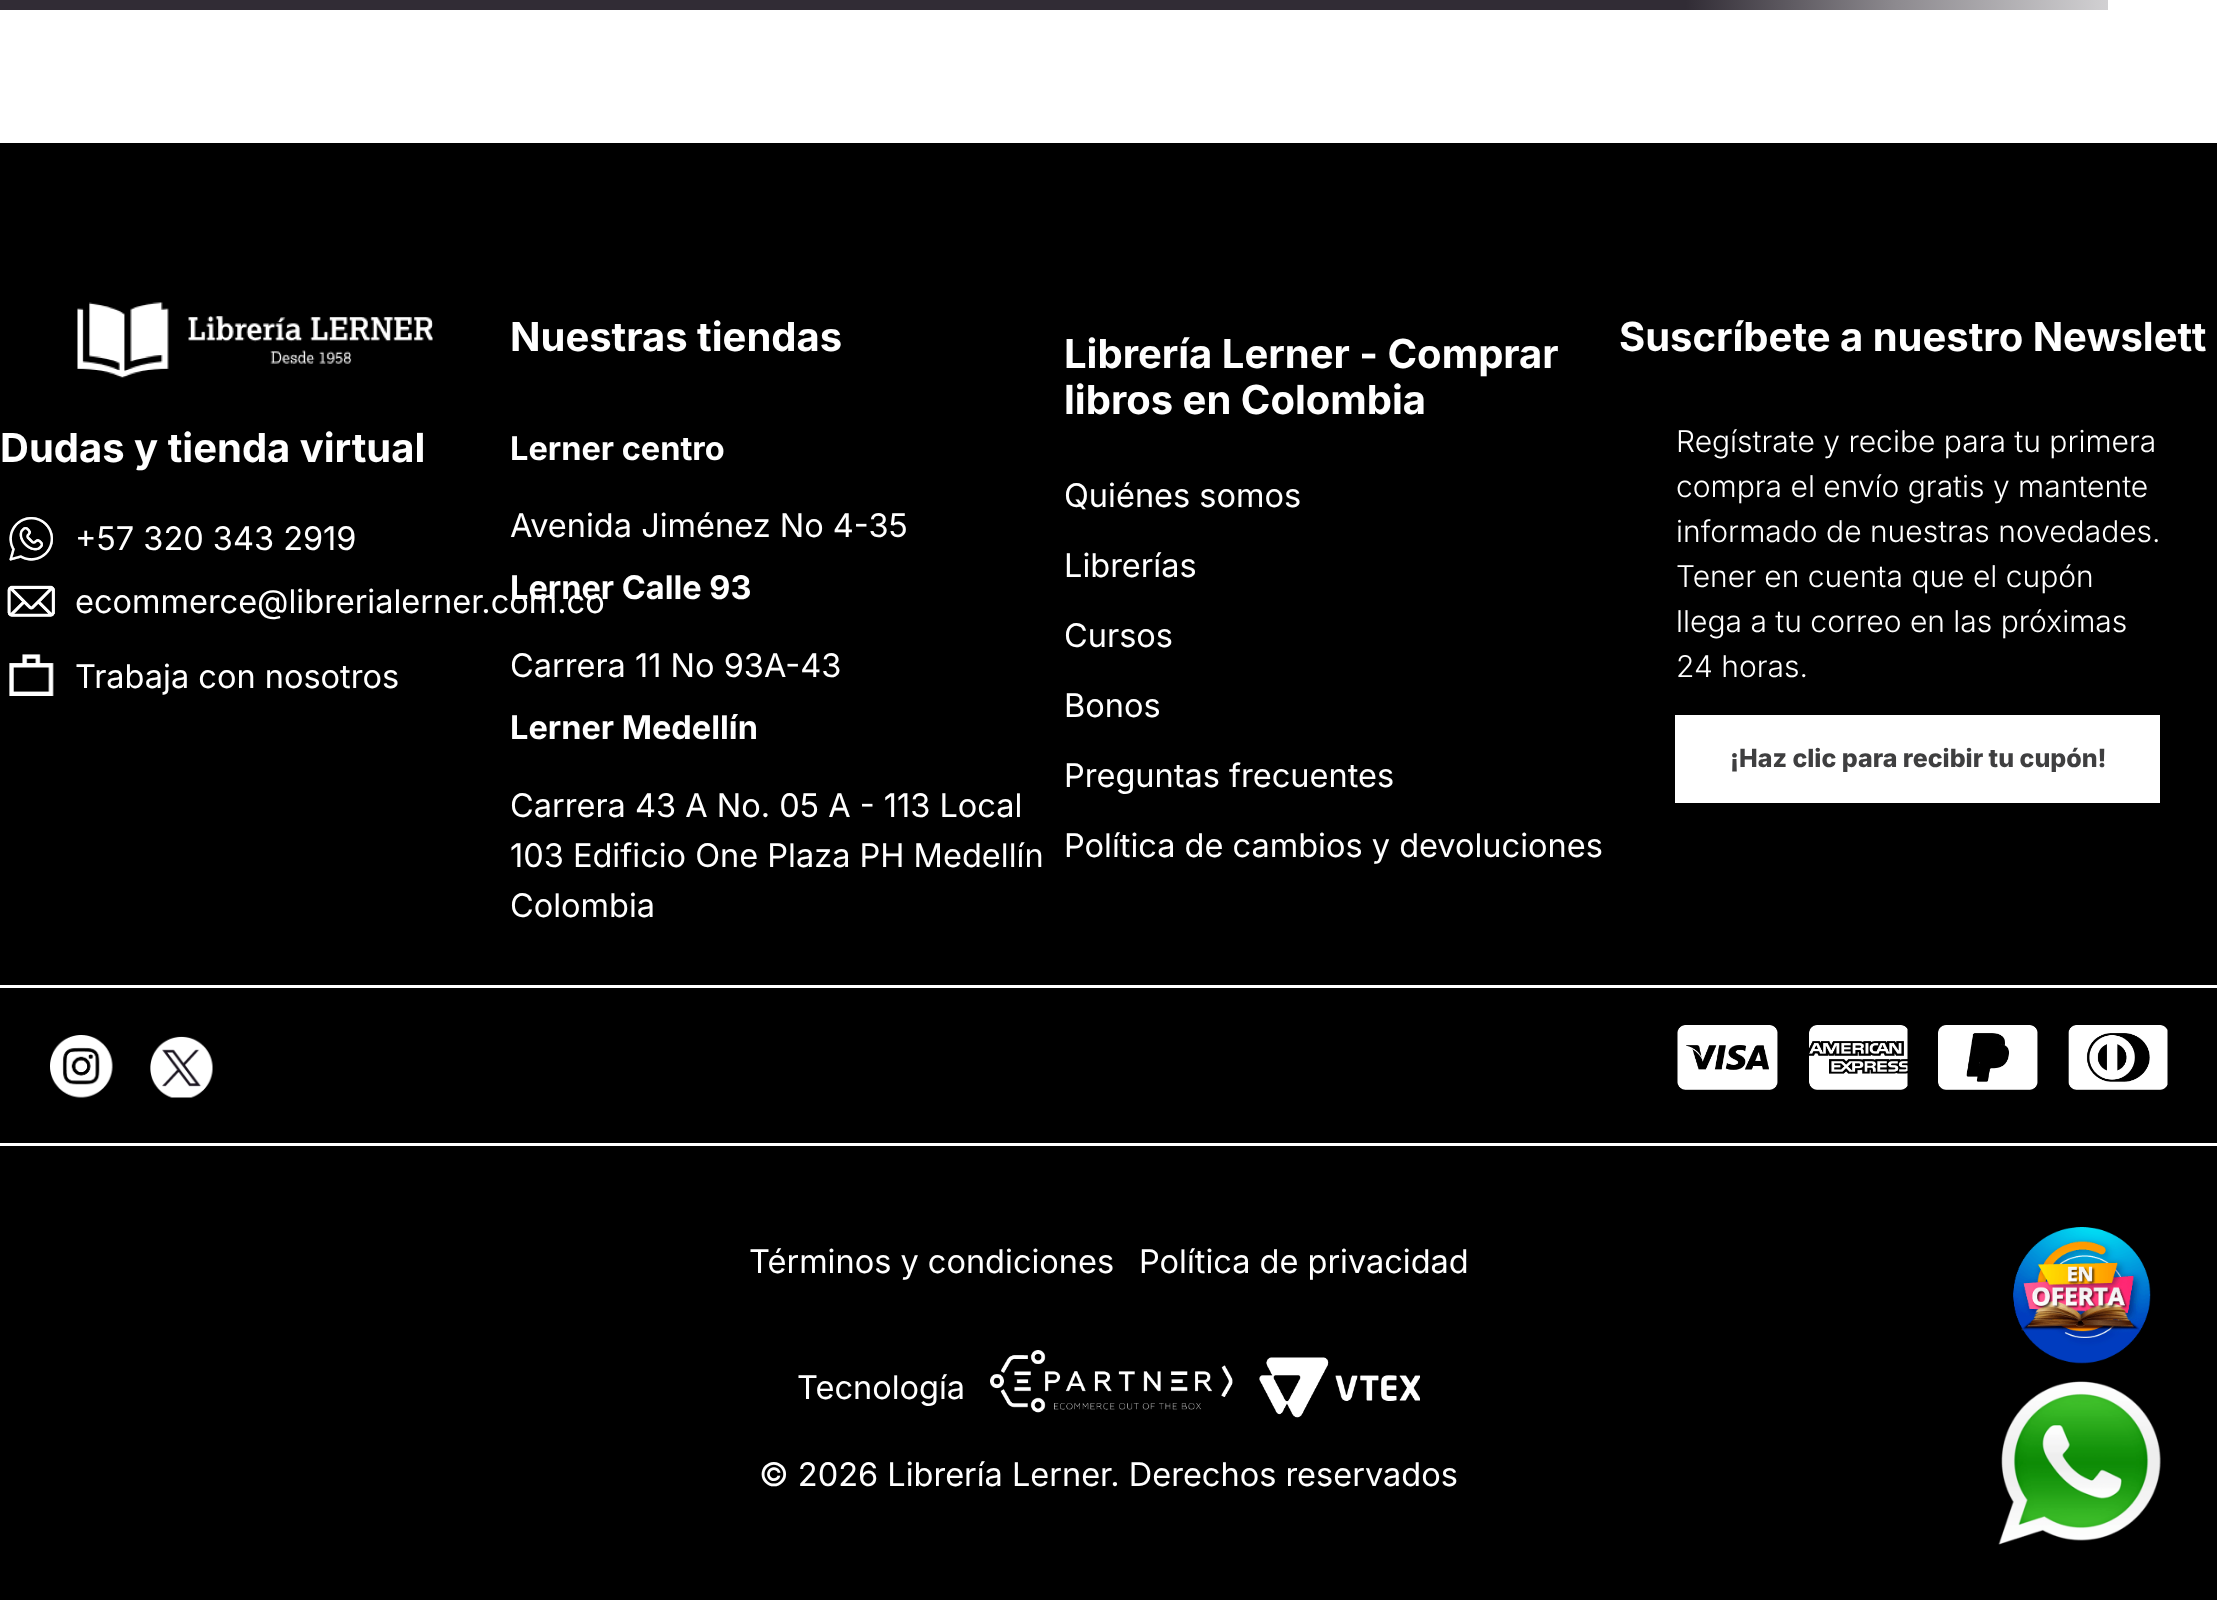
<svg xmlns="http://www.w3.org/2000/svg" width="2217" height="1600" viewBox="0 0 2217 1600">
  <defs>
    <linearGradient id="g1" gradientUnits="userSpaceOnUse" x1="0" y1="5" x2="2107" y2="5"><stop offset="0.8" stop-color="rgb(49,44,53)"/><stop offset="0.9" stop-color="rgb(141,138,143)"/><stop offset="1" stop-color="rgb(209,208,210)"/></linearGradient>
  </defs>
  <rect width="100%" height="100%" fill="rgb(255,255,255)"/>
  <rect x="0" y="0" width="2108" height="10" fill="url(#g1)"/>
  <rect x="0" y="143" width="2217" height="1457" fill="rgb(0,0,0)"/>
  <image x="77" y="302" width="356" height="76" href="pic1.png"/>
  <text x="0" y="462" font-family="Inter" font-size="40" font-weight="bold" fill="rgb(255,255,255)">Dudas y tienda virtual</text>
  <image x="9" y="517" width="44" height="44" href="pic2.png"/>
  <text x="75" y="550" font-family="Inter" font-size="32.5" fill="rgb(255,255,255)">+57 320 343 2919</text>
  <image x="7" y="585" width="48" height="32" href="pic3.png"/>
  <text x="75" y="613" font-family="Inter" font-size="32.5" fill="rgb(255,255,255)">ecommerce@librerialerner.com.co</text>
  <image x="9" y="654" width="45" height="42" href="pic4.png"/>
  <text x="75" y="688" font-family="Inter" font-size="32.5" fill="rgb(255,255,255)">Trabaja con nosotros</text>
  <text x="510" y="351" font-family="Inter" font-size="40" font-weight="bold" fill="rgb(255,255,255)">Nuestras tiendas</text>
  <text x="510" y="460" font-family="Inter" font-size="32.5" font-weight="bold" fill="rgb(255,255,255)">Lerner centro</text>
  <text x="510" y="537" font-family="Inter" font-size="32.5" fill="rgb(255,255,255)">Avenida Jiménez No 4-35</text>
  <text x="510" y="599" font-family="Inter" font-size="32.5" font-weight="bold" fill="rgb(255,255,255)">Lerner Calle 93</text>
  <text x="510" y="677" font-family="Inter" font-size="32.5" fill="rgb(255,255,255)">Carrera 11 No 93A-43</text>
  <text x="510" y="739" font-family="Inter" font-size="32.5" font-weight="bold" fill="rgb(255,255,255)">Lerner Medellín</text>
  <g font-family="Inter" font-size="32.5" fill="rgb(255,255,255)">
    <text>
      <tspan x="510" y="817">Carrera 43 A No. 05 A - 113 Local</tspan>
      <tspan x="510" y="867">103 Edificio One Plaza PH Medellín</tspan>
      <tspan x="510" y="917">Colombia</tspan>
    </text>
  </g>
  <g font-family="Inter" font-size="40" font-weight="bold" fill="rgb(255,255,255)">
    <text>
      <tspan x="1064" y="368">Librería Lerner - Comprar</tspan>
      <tspan x="1064" y="414">libros en Colombia</tspan>
    </text>
  </g>
  <g font-family="Inter" font-size="32.5" fill="rgb(255,255,255)">
    <text x="1064" y="507">Quiénes somos</text>
    <text x="1064" y="577">Librerías</text>
    <text x="1064" y="647">Cursos</text>
    <text x="1064" y="717">Bonos</text>
    <text x="1064" y="787">Preguntas frecuentes</text>
    <text x="1064" y="857">Política de cambios y devoluciones</text>
  </g>
  <text x="1619" y="351" font-family="Inter" font-size="40" font-weight="bold" fill="rgb(255,255,255)">Suscríbete a nuestro Newslett</text>
  <g font-family="Inter" font-size="30" font-weight="300" fill="rgb(255,255,255)">
    <text>
      <tspan x="1676" y="452">Regístrate y recibe para tu primera</tspan>
      <tspan x="1676" y="497">compra el envío gratis y mantente</tspan>
      <tspan x="1676" y="542">informado de nuestras novedades.</tspan>
      <tspan x="1676" y="587">Tener en cuenta que el cupón</tspan>
      <tspan x="1676" y="632">llega a tu correo en las próximas</tspan>
      <tspan x="1676" y="677">24 horas.</tspan>
    </text>
  </g>
  <rect x="1675" y="715" width="485" height="88" fill="rgb(255,255,255)"/>
  <text x="1730" y="767" font-family="Inter" font-size="25" font-weight="800" fill="rgb(63,63,64)">¡Haz clic para recibir tu cupón!</text>
  <rect x="0" y="985" width="2217" height="3" fill="rgb(255,255,255)"/>
  <rect x="0" y="1143" width="2217" height="3" fill="rgb(255,255,255)"/>
  <image x="50" y="1035" width="63" height="63" href="pic5.png"/>
  <image x="150" y="1036" width="63" height="62" href="pic6.png"/>
  <image x="1677" y="1025" width="101" height="65" href="pic7.png"/>
  <image x="1809" y="1025" width="99" height="65" href="pic8.png"/>
  <image x="1938" y="1025" width="100" height="65" href="pic9.png"/>
  <image x="2068" y="1025" width="100" height="65" href="pic10.png"/>
  <g font-family="Inter" font-size="32.5" fill="rgb(255,255,255)">
    <text x="749" y="1273">Términos y condiciones</text>
    <text x="1139" y="1273">Política de privacidad</text>
    <text x="797" y="1399">Tecnología</text>
  </g>
  <image x="990" y="1350" width="243" height="63" href="pic11.png"/>
  <image x="1259" y="1357" width="161" height="61" href="pic12.png"/>
  <text x="759" y="1486" font-family="Inter" font-size="32.5" fill="rgb(255,255,255)">© 2026 Librería Lerner. Derechos reservados</text>
  <image x="2013" y="1227" width="138" height="137" href="pic13.png"/>
  <image x="1998" y="1381" width="163" height="164" href="pic14.png"/>
</svg>
